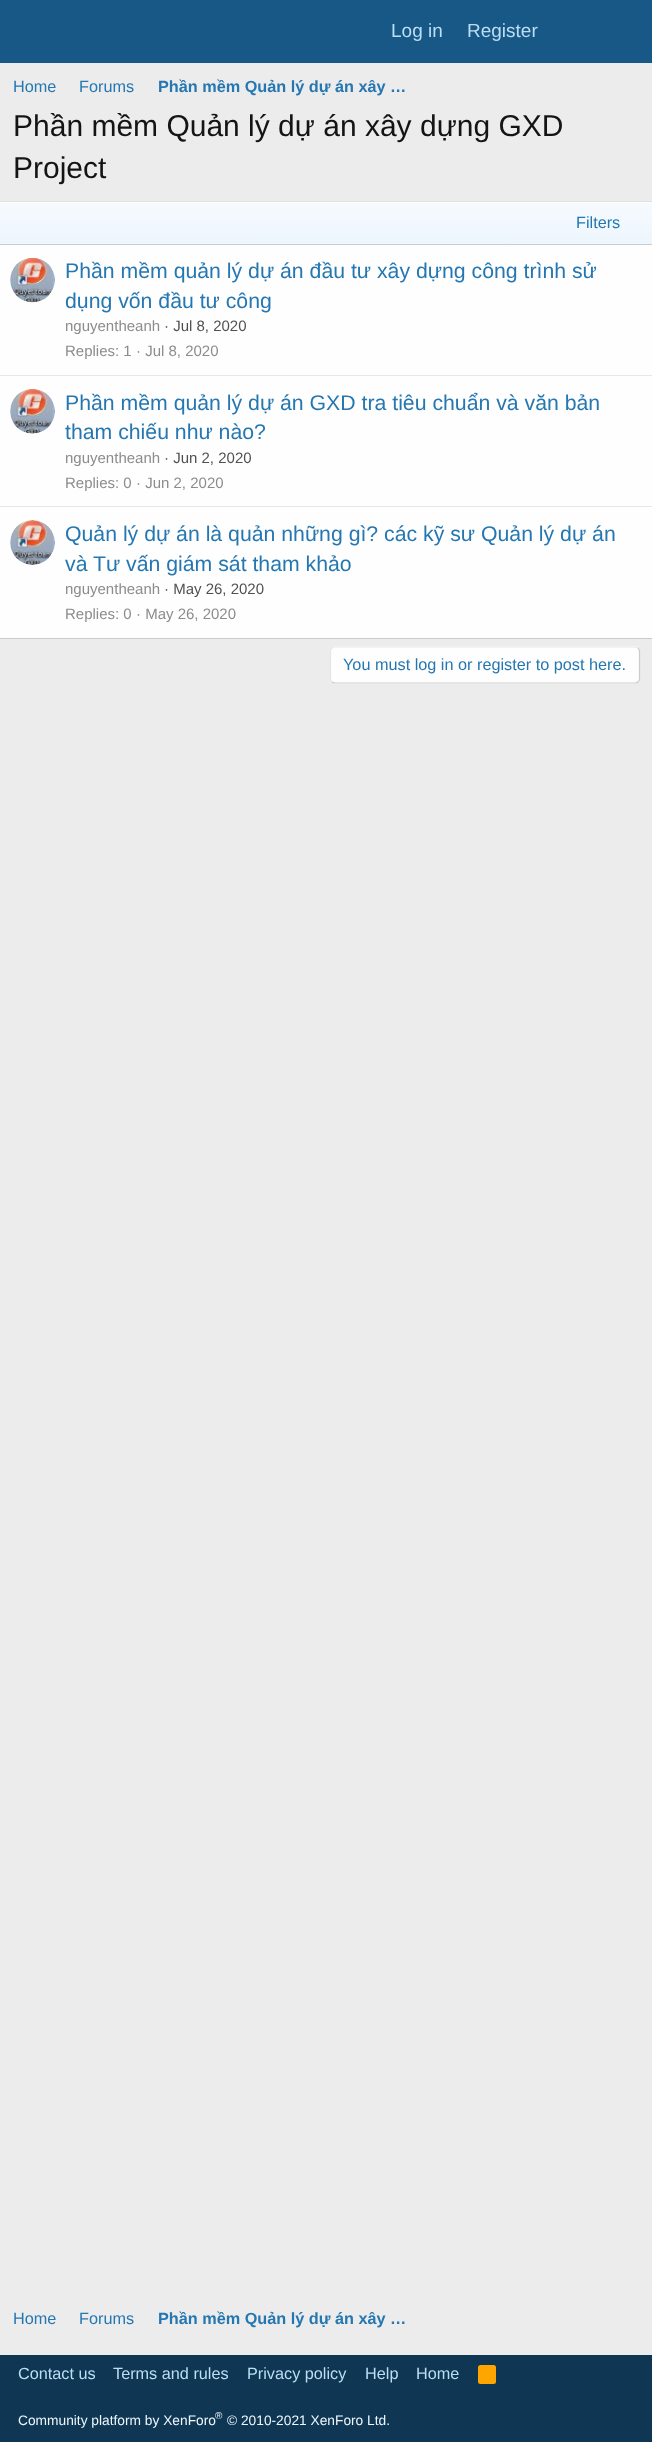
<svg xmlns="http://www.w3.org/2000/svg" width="652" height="2442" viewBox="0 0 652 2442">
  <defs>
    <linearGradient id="g1" gradientUnits="userSpaceOnUse" x1="326" y1="244" x2="326" y2="203"><stop offset="0" stop-color="rgb(237,246,253)"/><stop offset="1" stop-color="rgb(246,250,254)"/></linearGradient>
  </defs>
  <rect width="100%" height="100%" fill="rgb(236,236,236)"/>
  <rect x="0" y="0" width="652" height="63" fill="rgb(24,88,134)"/>
  <g font-family="Liberation Sans" font-size="19" fill="rgb(188,222,245)">
    <text x="391" y="37">Log in</text>
    <text x="467" y="37">Register</text>
  </g>
  <g font-family="Liberation Sans" font-size="16.25" fill="rgb(37,119,177)">
    <text x="13" y="92">Home</text>
    <text x="79" y="92">Forums</text>
  </g>
  <text x="158" y="92" font-family="Liberation Sans" font-size="16.25" font-weight="bold" fill="rgb(37,119,177)">Phần mềm Quản lý dự án xây …</text>
  <g font-family="Liberation Sans" font-size="30" fill="rgb(20,20,20)">
    <text>
      <tspan x="13" y="136">Phần mềm Quản lý dự án xây dựng GXD</tspan>
      <tspan x="13" y="178">Project</tspan>
    </text>
  </g>
  <rect x="0" y="202" width="652" height="436" fill="rgb(254,254,254)"/>
  <rect x="0" y="201" width="652" height="1" fill="rgb(223,223,223)"/>
  <rect x="0" y="638" width="652" height="1" fill="rgb(203,203,203)"/>
  <rect x="0" y="203" width="652" height="41" fill="url(#g1)"/>
  <rect x="0" y="244" width="652" height="1" fill="rgb(203,203,203)"/>
  <text x="576" y="228" font-family="Liberation Sans" font-size="16.25" fill="rgb(37,119,177)">Filters</text>
  <image x="10" y="257" width="45" height="46" href="pic1.png"/>
  <g font-family="Liberation Sans" font-size="21.25" fill="rgb(37,119,177)">
    <text>
      <tspan x="65" y="278">Phần mềm quản lý dự án đầu tư xây dựng công trình sử</tspan>
      <tspan x="65" y="308">dụng vốn đầu tư công</tspan>
    </text>
  </g>
  <text x="65" y="331" font-family="Liberation Sans" font-size="15" fill="rgb(140,140,140)">nguyentheanh</text>
  <text x="164" y="331" font-family="Liberation Sans" font-size="15" fill="rgb(80,80,80)">· Jul 8, 2020</text>
  <g font-family="Liberation Sans" font-size="15" fill="rgb(140,140,140)">
    <text x="65" y="356">Replies: 1</text>
    <text x="136" y="356">· Jul 8, 2020</text>
  </g>
  <rect x="0" y="375" width="652" height="1" fill="rgb(231,231,231)"/>
  <image x="10" y="389" width="45" height="45" href="pic2.png"/>
  <g font-family="Liberation Sans" font-size="21.25" fill="rgb(37,119,177)">
    <text>
      <tspan x="65" y="410">Phần mềm quản lý dự án GXD tra tiêu chuẩn và văn bản</tspan>
      <tspan x="65" y="439">tham chiếu như nào?</tspan>
    </text>
  </g>
  <text x="65" y="463" font-family="Liberation Sans" font-size="15" fill="rgb(140,140,140)">nguyentheanh</text>
  <text x="164" y="463" font-family="Liberation Sans" font-size="15" fill="rgb(80,80,80)">· Jun 2, 2020</text>
  <g font-family="Liberation Sans" font-size="15" fill="rgb(140,140,140)">
    <text x="65" y="488">Replies: 0</text>
    <text x="136" y="488">· Jun 2, 2020</text>
  </g>
  <rect x="0" y="506" width="652" height="1" fill="rgb(231,231,231)"/>
  <image x="10" y="520" width="45" height="45" href="pic3.png"/>
  <g font-family="Liberation Sans" font-size="21.25" fill="rgb(37,119,177)">
    <text>
      <tspan x="65" y="541">Quản lý dự án là quản những gì? các kỹ sư Quản lý dự án</tspan>
      <tspan x="65" y="571">và Tư vấn giám sát tham khảo</tspan>
    </text>
  </g>
  <text x="65" y="594" font-family="Liberation Sans" font-size="15" fill="rgb(140,140,140)">nguyentheanh</text>
  <text x="164" y="594" font-family="Liberation Sans" font-size="15" fill="rgb(80,80,80)">· May 26, 2020</text>
  <g font-family="Liberation Sans" font-size="15" fill="rgb(140,140,140)">
    <text x="65" y="619">Replies: 0</text>
    <text x="136" y="619">· May 26, 2020</text>
  </g>
  <rect x="330" y="646" width="310" height="38" rx="5" fill="rgb(254,254,254)"/>
  <path d="M638 648C639 649 639.5 650 639.5 651V679C639.5 680 639 681 638 682C637.5 682.5 636 683 635 683H335C334 683 332.5 682.5 332 682" fill="none" stroke="rgb(203,203,203)" stroke-width="1.2"/>
  <path d="M332 682C331 681 330.5 680 330.5 679V651C330.5 650 331 649 332 648C332.5 647.5 334 647 335 647H635C636 647 637.5 647.5 638 648" fill="none" stroke="rgb(229,229,229)" stroke-width="1.2"/>
  <g font-family="Liberation Sans" font-size="16.25" fill="rgb(37,119,177)">
    <text x="343" y="670">You must log in or register to post here.</text>
    <text x="13" y="2324">Home</text>
    <text x="79" y="2324">Forums</text>
  </g>
  <text x="158" y="2324" font-family="Liberation Sans" font-size="16.25" font-weight="bold" fill="rgb(37,119,177)">Phần mềm Quản lý dự án xây …</text>
  <rect x="0" y="2355" width="652" height="87" fill="rgb(15,54,82)"/>
  <g font-family="Liberation Sans" font-size="16.25" fill="rgb(188,222,245)">
    <text x="18" y="2379">Contact us</text>
    <text x="113" y="2379">Terms and rules</text>
    <text x="247" y="2379">Privacy policy</text>
    <text x="365" y="2379">Help</text>
    <text x="416" y="2379">Home</text>
  </g>
  <rect x="478" y="2365" width="18" height="19" rx="2.5" fill="rgb(255,165,0)"/>
  <text x="18" y="2425" font-family="Liberation Sans" font-size="13.75" fill="rgb(237,246,253)">Community platform by XenForo</text>
  <text x="215" y="2419" font-family="Liberation Sans" font-size="10" fill="rgb(237,246,253)">®</text>
  <text x="227" y="2425" font-family="Liberation Sans" font-size="13.75" fill="rgb(237,246,253)">© 2010-2021 XenForo Ltd.</text>
</svg>
